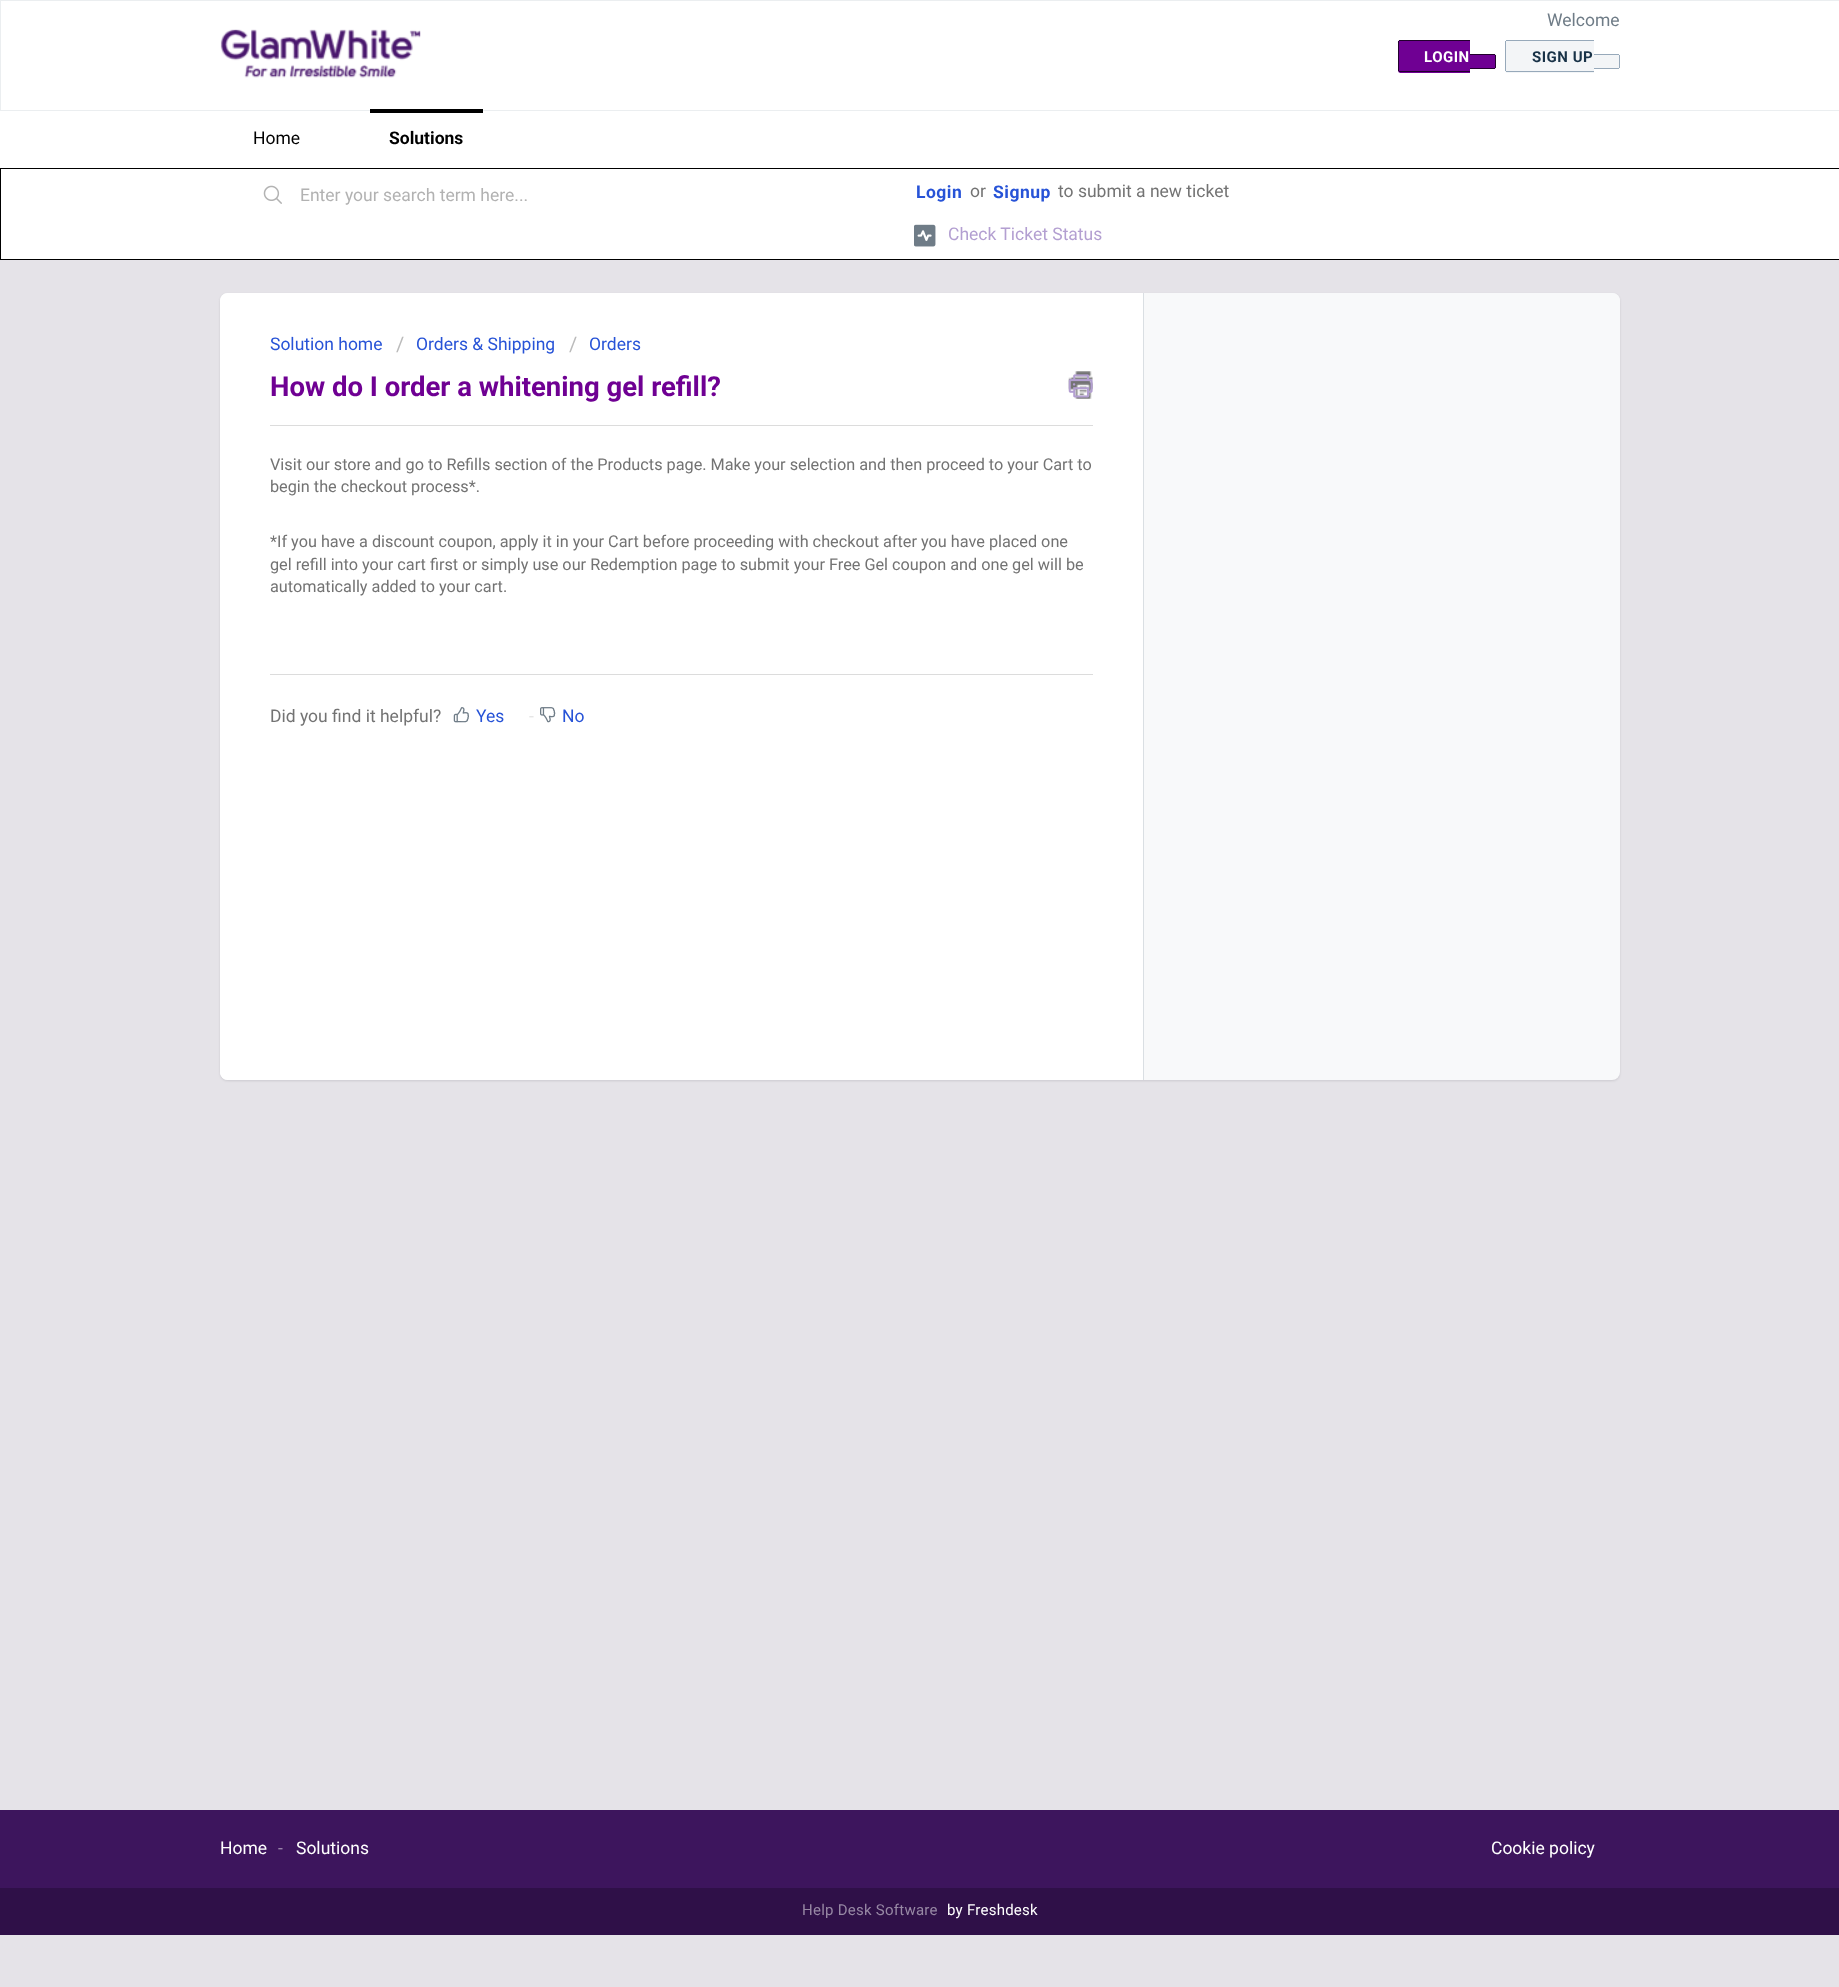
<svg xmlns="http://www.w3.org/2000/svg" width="1839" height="1987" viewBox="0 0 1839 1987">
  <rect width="100%" height="100%" fill="rgb(229,227,232)"/>
  <rect x="0.5" y="0.5" width="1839" height="110" fill="rgb(255,255,255)" stroke="rgb(235,238,240)"/>
  <image x="220" y="29" width="201" height="49" href="pic1.png"/>
  <text x="1547" y="26" font-family="Roboto" font-size="17.5" fill="rgb(111,124,135)">Welcome</text>
  <path d="M1400.5 40H1470V73H1400.5C1399 73 1398 72 1398 70.5V42.5C1398 41 1399 40 1400.5 40Z" fill="rgb(111,0,147)"/>
  <text x="1424" y="62" font-family="Roboto" font-size="15" font-weight="bold" letter-spacing="0.5" fill="rgb(255,255,255)">LOGIN</text>
  <rect x="1399" y="40" width="71" height="1" fill="rgb(34,0,45)"/>
  <rect x="1399" y="71" width="71" height="1" fill="rgb(34,0,45)"/>
  <rect x="1398" y="41" width="1" height="30" fill="rgb(34,0,45)"/>
  <path d="M1470 54H1493.5C1495 54 1496 55 1496 56.5V66.5C1496 68 1495 69 1493.5 69H1470Z" fill="rgb(111,0,147)"/>
  <rect x="1470" y="54" width="25" height="1" fill="rgb(34,0,45)"/>
  <rect x="1495" y="55" width="1" height="13" fill="rgb(34,0,45)"/>
  <rect x="1470" y="68" width="25" height="1" fill="rgb(34,0,45)"/>
  <path d="M1507.5 40H1594V73H1507.5C1506 73 1505 72 1505 70.5V42.5C1505 41 1506 40 1507.5 40Z" fill="rgb(243,245,247)"/>
  <text x="1532" y="62" font-family="Roboto" font-size="15" font-weight="bold" letter-spacing="0.5" fill="rgb(24,50,71)">SIGN UP</text>
  <rect x="1506" y="40" width="88" height="1" fill="rgb(151,169,186)"/>
  <rect x="1506" y="71" width="88" height="1" fill="rgb(151,169,186)"/>
  <rect x="1505" y="41" width="1" height="30" fill="rgb(151,169,186)"/>
  <path d="M1594 54H1617.5C1619 54 1620 55 1620 56.5V66.5C1620 68 1619 69 1617.5 69H1594Z" fill="rgb(243,245,247)"/>
  <rect x="1594" y="54" width="25" height="1" fill="rgb(151,169,186)"/>
  <rect x="1619" y="55" width="1" height="13" fill="rgb(151,169,186)"/>
  <rect x="1594" y="68" width="25" height="1" fill="rgb(151,169,186)"/>
  <rect x="0" y="111" width="1839" height="57" fill="rgb(255,255,255)"/>
  <text x="253" y="144" font-family="Roboto" font-size="17.5" fill="rgb(0,0,0)">Home</text>
  <rect x="370" y="109" width="113" height="4" fill="rgb(0,0,0)"/>
  <text x="389" y="144" font-family="Roboto" font-size="17.5" font-weight="bold" fill="rgb(0,0,0)">Solutions</text>
  <rect x="0.5" y="168.5" width="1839" height="91" fill="rgb(255,255,255)" stroke="rgb(0,0,0)"/>
  <image x="263" y="185" width="19" height="19" href="pic2.png"/>
  <text x="300" y="201" font-family="Roboto" font-size="17.5" fill="rgb(178,178,178)">Enter your search term here...</text>
  <text x="916" y="198" font-family="Roboto" font-size="17.5" font-weight="bold" letter-spacing="0.5" fill="rgb(39,83,215)">Login</text>
  <text x="970" y="197" font-family="Roboto" font-size="17.5" fill="rgb(115,115,115)">or</text>
  <text x="993" y="198" font-family="Roboto" font-size="17.5" font-weight="bold" letter-spacing="0.5" fill="rgb(39,83,215)">Signup</text>
  <text x="1058" y="197" font-family="Roboto" font-size="17.5" fill="rgb(115,115,115)">to submit a new ticket</text>
  <image x="914" y="224" width="22" height="23" href="pic3.png"/>
  <text x="948" y="240" font-family="Roboto" font-size="17.5" fill="rgb(179,159,209)">Check Ticket Status</text>
  <rect x="220" y="294" width="1400" height="787" rx="8" fill="rgba(63,63,68,0.15)" filter="blur(1px)"/>
  <rect x="220" y="293" width="1400" height="787" rx="8" fill="rgb(248,249,250)"/>
  <path d="M1144 293H1612C1616.5 293 1620 296.5 1620 301V310C1620 314.5 1616.5 318 1612 318H1144Z" fill="rgb(248,249,250)"/>
  <path d="M228 293H1144V1080H228C223.5 1080 220 1076.5 220 1072V301C220 296.5 223.5 293 228 293Z" fill="rgb(255,255,255)"/>
  <rect x="1143" y="293" width="1" height="787" fill="rgb(218,223,227)"/>
  <text x="270" y="350" font-family="Roboto" font-size="17.5" fill="rgb(39,83,215)">Solution home</text>
  <text x="396" y="351" font-family="Roboto" font-size="20" fill="rgb(187,187,187)">/</text>
  <text x="416" y="350" font-family="Roboto" font-size="17.5" fill="rgb(39,83,215)">Orders &amp; Shipping</text>
  <text x="569" y="351" font-family="Roboto" font-size="20" fill="rgb(187,187,187)">/</text>
  <text x="589" y="350" font-family="Roboto" font-size="17.5" fill="rgb(39,83,215)">Orders</text>
  <text x="270" y="396" font-family="Roboto" font-size="27.5" font-weight="bold" fill="rgb(111,0,147)">How do I order a whitening gel refill?</text>
  <image x="1068" y="371" width="25" height="28" href="pic4.png"/>
  <image x="1068" y="374" width="25" height="24" href="pic5.png"/>
  <rect x="270" y="425" width="823" height="1" fill="rgb(220,220,220)"/>
  <g font-family="Roboto" font-size="16.25" fill="rgb(115,115,115)">
    <text>
      <tspan x="270" y="470">Visit our store and go to Refills section of the Products page. Make your selection and then proceed to your Cart to</tspan>
      <tspan x="270" y="492">begin the checkout process*.</tspan>
    </text>
    <text>
      <tspan x="270" y="547">*If you have a discount coupon, apply it in your Cart before proceeding with checkout after you have placed one</tspan>
      <tspan x="270" y="570">gel refill into your cart first or simply use our Redemption page to submit your Free Gel coupon and one gel will be</tspan>
      <tspan x="270" y="592">automatically added to your cart.</tspan>
    </text>
  </g>
  <rect x="270" y="674" width="823" height="1" fill="rgb(220,220,220)"/>
  <text x="270" y="722" font-family="Roboto" font-size="17.5" fill="rgb(115,115,115)">Did you find it helpful?</text>
  <image x="453" y="707" width="16" height="16" href="pic6.png"/>
  <text x="476" y="722" font-family="Roboto" font-size="17.5" fill="rgb(39,83,215)">Yes</text>
  <text x="529" y="722" font-family="Roboto" font-size="17.5" fill="rgb(229,229,229)">-</text>
  <image x="540" y="707" width="16" height="16" href="pic7.png"/>
  <text x="562" y="722" font-family="Roboto" font-size="17.5" fill="rgb(39,83,215)">No</text>
  <rect x="0" y="1810" width="1839" height="78" fill="rgb(61,21,93)"/>
  <text x="220" y="1854" font-family="Roboto" font-size="17.5" fill="rgb(255,255,255)">Home</text>
  <text x="278" y="1854" font-family="Roboto" font-size="17.5" fill="rgb(158,138,174)">-</text>
  <g font-family="Roboto" font-size="17.5" fill="rgb(255,255,255)">
    <text x="296" y="1854">Solutions</text>
    <text x="1491" y="1854">Cookie policy</text>
  </g>
  <rect x="0" y="1888" width="1839" height="47" fill="rgb(47,16,72)"/>
  <text x="802" y="1915" font-family="Roboto" font-size="15" letter-spacing="0.25" fill="rgb(151,136,164)">Help Desk Software</text>
  <text x="947" y="1915" font-family="Roboto" font-size="15" letter-spacing="0.25" fill="rgb(255,255,255)">by Freshdesk</text>
</svg>
